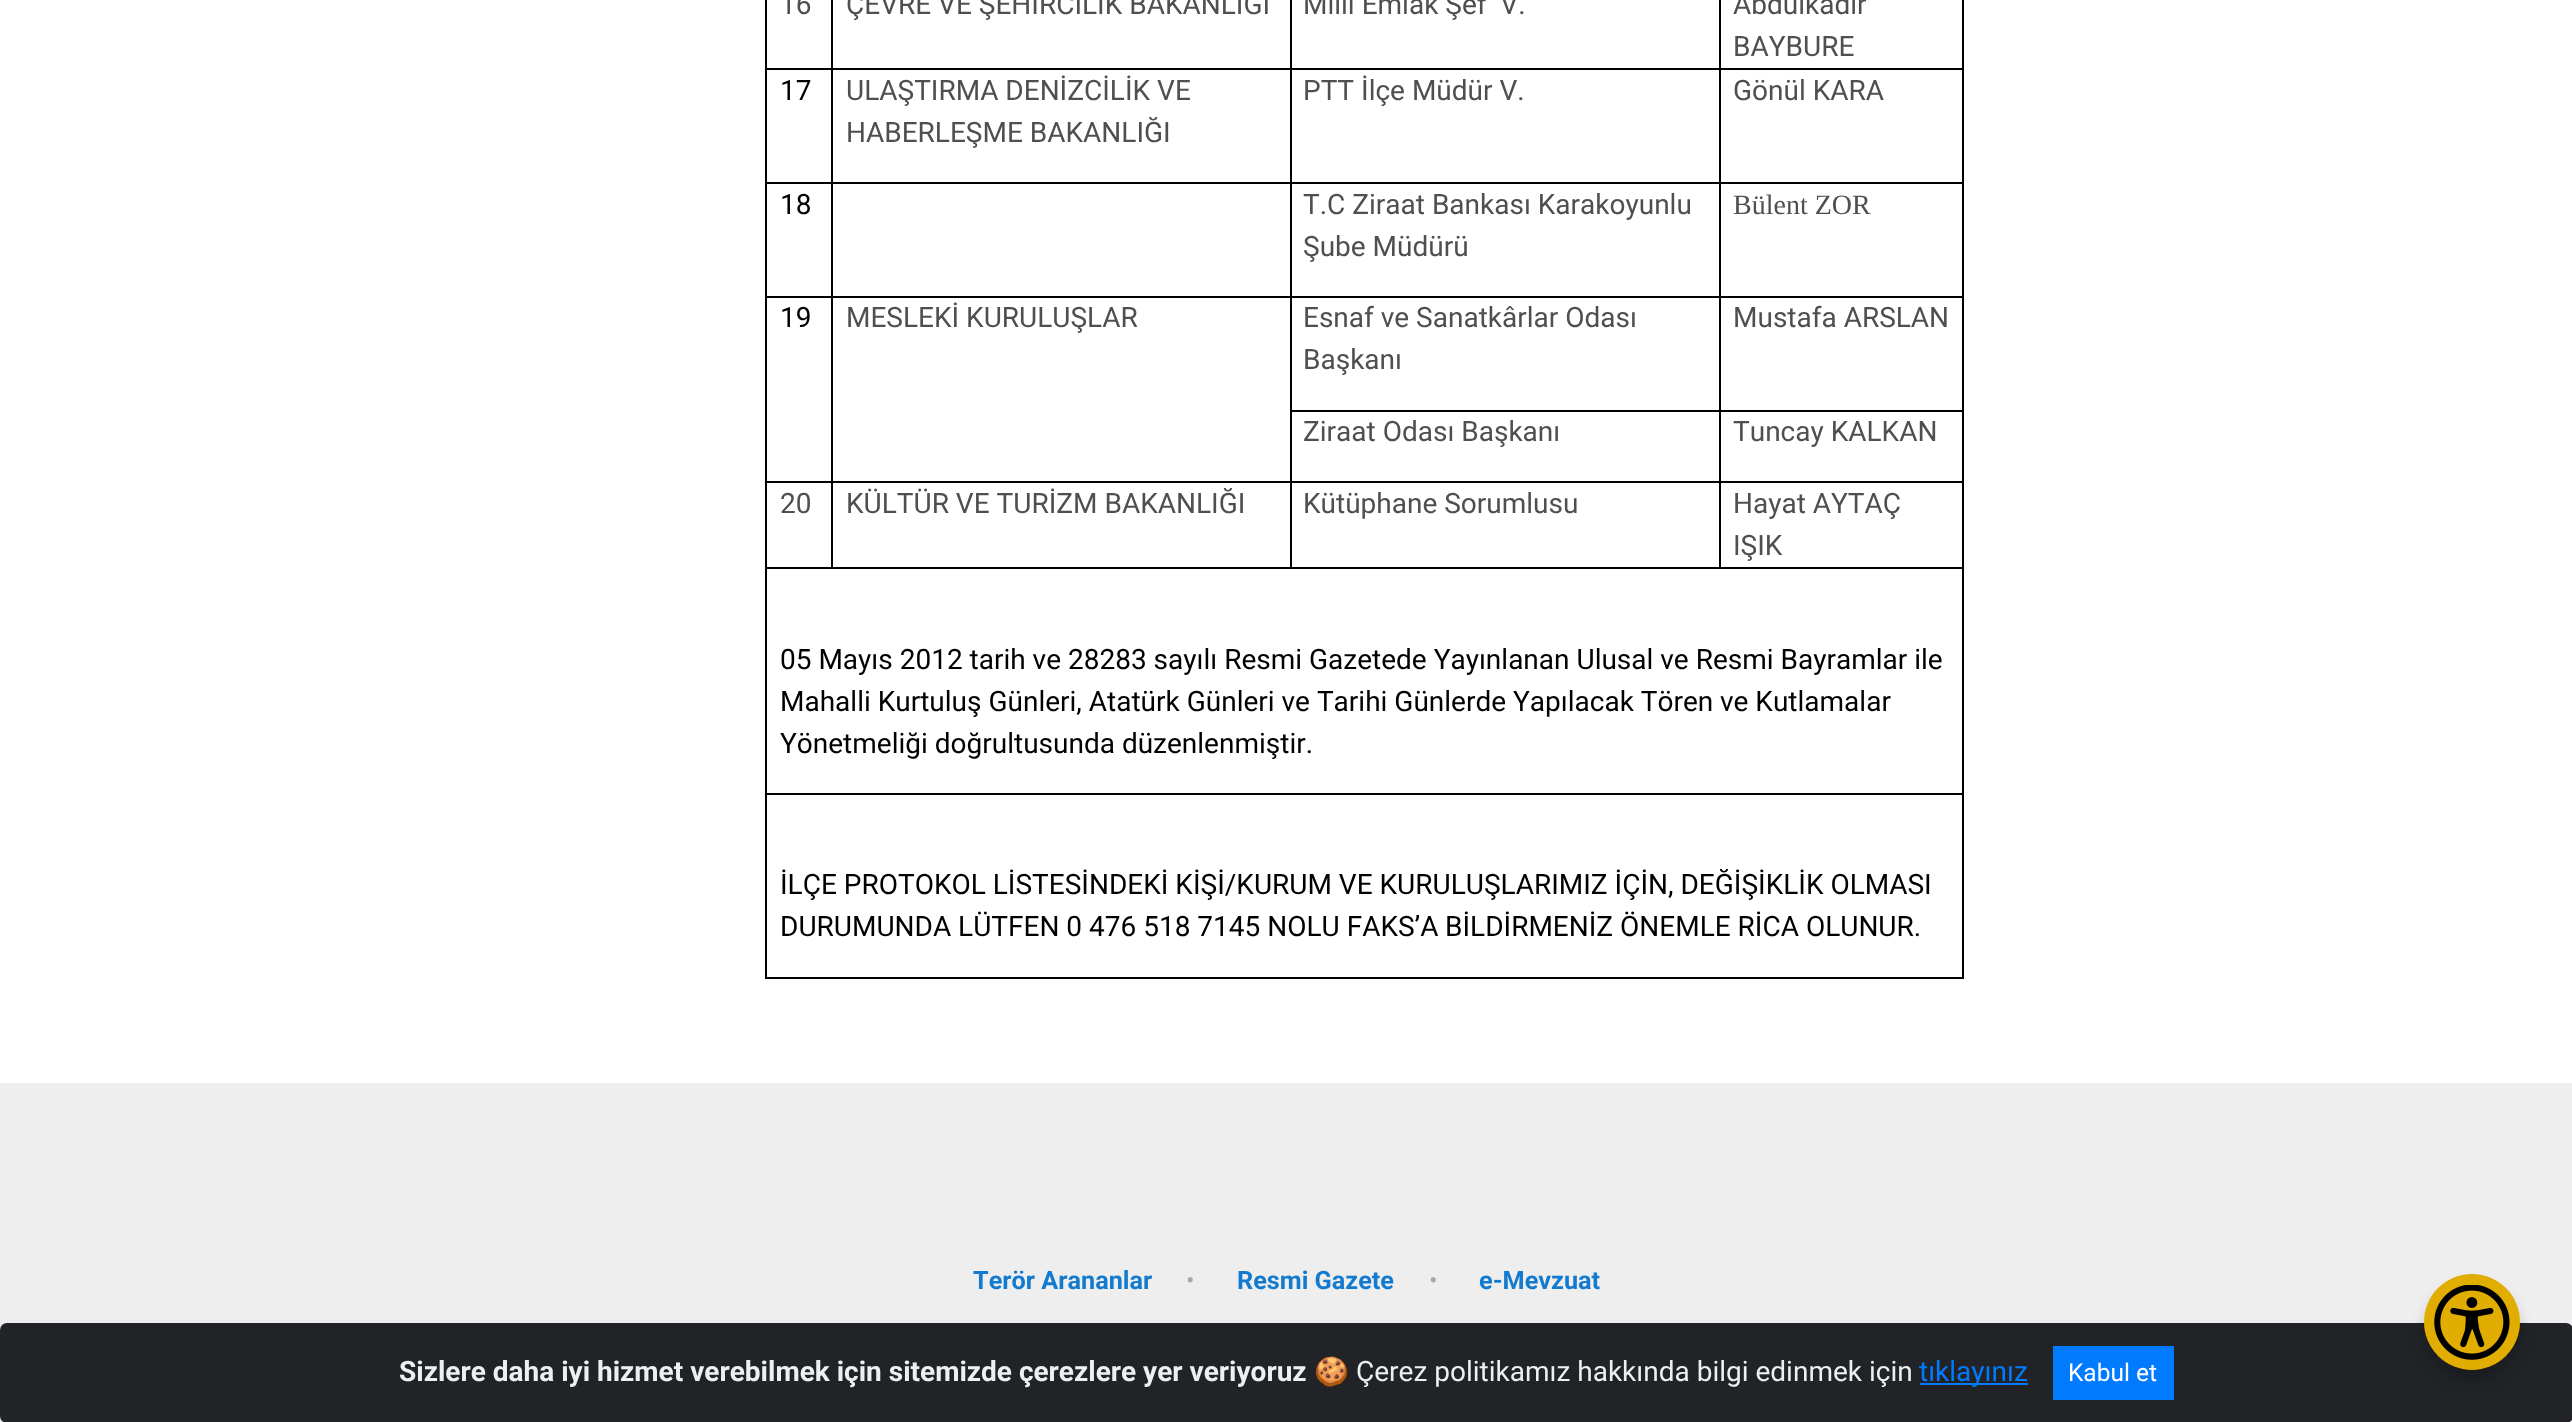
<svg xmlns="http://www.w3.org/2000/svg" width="2572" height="1422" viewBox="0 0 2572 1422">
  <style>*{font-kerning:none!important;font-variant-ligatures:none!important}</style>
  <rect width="100%" height="100%" fill="rgb(255,255,255)"/>
  <rect x="1962" y="0" width="2" height="978" fill="rgb(0,0,0)"/>
  <rect x="765" y="977" width="1199" height="2" fill="rgb(0,0,0)"/>
  <rect x="765" y="0" width="2" height="978" fill="rgb(0,0,0)"/>
  <rect x="1719" y="567" width="245" height="2" fill="rgb(0,0,0)"/>
  <rect x="1719" y="481" width="2" height="88" fill="rgb(0,0,0)"/>
  <rect x="1719" y="481" width="245" height="2" fill="rgb(0,0,0)"/>
  <rect x="1719" y="410" width="2" height="73" fill="rgb(0,0,0)"/>
  <rect x="1719" y="410" width="245" height="2" fill="rgb(0,0,0)"/>
  <rect x="1719" y="296" width="2" height="115" fill="rgb(0,0,0)"/>
  <rect x="1719" y="296" width="245" height="2" fill="rgb(0,0,0)"/>
  <rect x="1719" y="182" width="2" height="116" fill="rgb(0,0,0)"/>
  <rect x="1719" y="182" width="245" height="2" fill="rgb(0,0,0)"/>
  <rect x="1719" y="68" width="2" height="116" fill="rgb(0,0,0)"/>
  <rect x="1719" y="68" width="245" height="2" fill="rgb(0,0,0)"/>
  <rect x="1719" y="0" width="2" height="70" fill="rgb(0,0,0)"/>
  <rect x="1290" y="410" width="430" height="2" fill="rgb(0,0,0)"/>
  <rect x="1290" y="567" width="430" height="2" fill="rgb(0,0,0)"/>
  <rect x="1290" y="481" width="2" height="88" fill="rgb(0,0,0)"/>
  <rect x="1290" y="481" width="430" height="2" fill="rgb(0,0,0)"/>
  <rect x="1290" y="296" width="2" height="187" fill="rgb(0,0,0)"/>
  <rect x="1290" y="296" width="430" height="2" fill="rgb(0,0,0)"/>
  <rect x="1290" y="182" width="2" height="116" fill="rgb(0,0,0)"/>
  <rect x="1290" y="182" width="430" height="2" fill="rgb(0,0,0)"/>
  <rect x="1290" y="68" width="2" height="116" fill="rgb(0,0,0)"/>
  <rect x="1290" y="68" width="430" height="2" fill="rgb(0,0,0)"/>
  <rect x="1290" y="0" width="2" height="70" fill="rgb(0,0,0)"/>
  <rect x="831" y="567" width="461" height="2" fill="rgb(0,0,0)"/>
  <rect x="831" y="481" width="2" height="88" fill="rgb(0,0,0)"/>
  <rect x="831" y="481" width="461" height="2" fill="rgb(0,0,0)"/>
  <rect x="831" y="296" width="2" height="187" fill="rgb(0,0,0)"/>
  <rect x="831" y="296" width="461" height="2" fill="rgb(0,0,0)"/>
  <rect x="831" y="182" width="2" height="116" fill="rgb(0,0,0)"/>
  <rect x="831" y="182" width="461" height="2" fill="rgb(0,0,0)"/>
  <rect x="831" y="68" width="2" height="116" fill="rgb(0,0,0)"/>
  <rect x="831" y="68" width="461" height="2" fill="rgb(0,0,0)"/>
  <rect x="831" y="0" width="2" height="70" fill="rgb(0,0,0)"/>
  <rect x="765" y="68" width="68" height="2" fill="rgb(0,0,0)"/>
  <g font-family="Roboto" font-size="28" fill="rgb(79,79,79)">
    <text x="780" y="14">16</text>
    <text x="846" y="14">ÇEVRE VE ŞEHİRCİLİK BAKANLIĞI</text>
    <text x="1303" y="14" xml:space="preserve">Milli Emlak Şef  V.</text>
    <text>
      <tspan x="1733" y="14">Abdulkadir</tspan>
      <tspan x="1733" y="56">BAYBURE</tspan>
    </text>
  </g>
  <rect x="765" y="182" width="68" height="2" fill="rgb(0,0,0)"/>
  <text x="780" y="100" font-family="Roboto" font-size="28" fill="rgb(0,0,0)">17</text>
  <g font-family="Roboto" font-size="28" fill="rgb(79,79,79)">
    <text>
      <tspan x="846" y="100">ULAŞTIRMA DENİZCİLİK VE</tspan>
      <tspan x="846" y="142">HABERLEŞME BAKANLIĞI</tspan>
    </text>
    <text x="1303" y="100">PTT İlçe Müdür V.</text>
    <text x="1733" y="100">Gönül KARA</text>
  </g>
  <rect x="765" y="296" width="68" height="2" fill="rgb(0,0,0)"/>
  <text x="780" y="214" font-family="Roboto" font-size="28" fill="rgb(0,0,0)">18</text>
  <g font-family="Roboto" font-size="28" fill="rgb(79,79,79)">
    <text>
      <tspan x="1303" y="214">T.C Ziraat Bankası Karakoyunlu</tspan>
      <tspan x="1303" y="256">Şube Müdürü</tspan>
    </text>
  </g>
  <text x="1733" y="214" font-family="Liberation Serif" font-size="28" fill="rgb(79,79,79)">Bülent ZOR</text>
  <rect x="765" y="481" width="68" height="2" fill="rgb(0,0,0)"/>
  <text x="780" y="327" font-family="Roboto" font-size="28" fill="rgb(0,0,0)">19</text>
  <g font-family="Roboto" font-size="28" fill="rgb(79,79,79)">
    <text x="846" y="327">MESLEKİ KURULUŞLAR</text>
    <text>
      <tspan x="1303" y="327">Esnaf ve Sanatkârlar Odası</tspan>
      <tspan x="1303" y="369">Başkanı</tspan>
    </text>
    <text x="1733" y="327">Mustafa ARSLAN</text>
    <text x="1303" y="441">Ziraat Odası Başkanı</text>
    <text x="1733" y="441">Tuncay KALKAN</text>
  </g>
  <rect x="765" y="567" width="68" height="2" fill="rgb(0,0,0)"/>
  <g font-family="Roboto" font-size="28" fill="rgb(79,79,79)">
    <text x="780" y="513">20</text>
    <text x="846" y="513">KÜLTÜR VE TURİZM BAKANLIĞI</text>
    <text x="1303" y="513">Kütüphane Sorumlusu</text>
    <text>
      <tspan x="1733" y="513">Hayat AYTAÇ</tspan>
      <tspan x="1733" y="555">IŞIK</tspan>
    </text>
  </g>
  <rect x="765" y="793" width="1199" height="2" fill="rgb(0,0,0)"/>
  <g font-family="Roboto" font-size="28" fill="rgb(0,0,0)">
    <text>
      <tspan x="780" y="669">05 Mayıs 2012 tarih ve 28283 sayılı Resmi Gazetede Yayınlanan Ulusal ve Resmi Bayramlar ile</tspan>
      <tspan x="780" y="711">Mahalli Kurtuluş Günleri, Atatürk Günleri ve Tarihi Günlerde Yapılacak Tören</tspan>
    </text>
    <text x="1720" y="711">ve Kutlamalar</text>
    <text x="780" y="753">Yönetmeliği doğrultusunda düzenlenmiştir.</text>
    <text>
      <tspan x="780" y="894">İLÇE PROTOKOL LİSTESİNDEKİ KİŞİ/KURUM VE KURULUŞLARIMIZ İÇİN, DEĞİŞİKLİK OLMASI</tspan>
      <tspan x="780" y="936">DURUMUNDA LÜTFEN 0 476 518 7145 NOLU FAKS’A</tspan>
    </text>
    <text x="1445" y="936">BİLDİRMENİZ ÖNEMLE RİCA OLUNUR.</text>
  </g>
  <rect x="0" y="1083" width="2572" height="339" fill="rgb(238,238,238)"/>
  <text x="973" y="1289" font-family="Roboto" font-size="25.25" font-weight="bold" fill="rgb(19,123,207)">Terör Arananlar</text>
  <text x="1186" y="1289" font-family="Roboto" font-size="25.25" fill="rgb(170,170,170)">•</text>
  <text x="1237" y="1289" font-family="Roboto" font-size="25.25" font-weight="bold" fill="rgb(19,123,207)">Resmi Gazete</text>
  <text x="1429" y="1289" font-family="Roboto" font-size="25.25" fill="rgb(170,170,170)">•</text>
  <text x="1479" y="1289" font-family="Roboto" font-size="25.25" font-weight="bold" fill="rgb(19,123,207)">e-Mevzuat</text>
  <rect x="0" y="1323" width="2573" height="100" rx="7" fill="rgb(33,35,39)"/>
  <text x="399" y="1381" font-family="Roboto" font-size="28" font-weight="bold" fill="rgb(236,240,241)">Sizlere daha iyi hizmet verebilmek için sitemizde çerezlere yer veriyoruz</text>
  <text x="1314" y="1381" font-family="Noto Color Emoji" font-size="28" fill="rgb(236,240,241)">🍪</text>
  <text x="1356" y="1381" font-family="Roboto" font-size="28" fill="rgb(236,240,241)">Çerez politikamız hakkında bilgi edinmek için</text>
  <rect x="1920" y="1383" width="108" height="2" fill="rgb(0,123,255)"/>
  <text x="1919" y="1381" font-family="Roboto" font-size="28" fill="rgb(0,123,255)">tıklayınız</text>
  <rect x="2053" y="1346" width="121" height="54" fill="rgb(0,123,255)"/>
  <text x="2068" y="1381" font-family="Roboto" font-size="24.5" fill="rgb(255,255,255)">Kabul et</text>
  <rect x="2424" y="1285" width="96" height="96" rx="48" fill="rgba(0,0,0,0.2)" filter="blur(7px)"/>
  <circle cx="2472" cy="1322" r="48" fill="rgb(225,173,1)"/>
  <image x="2434" y="1285" width="76" height="75" href="pic1.png"/>
</svg>
